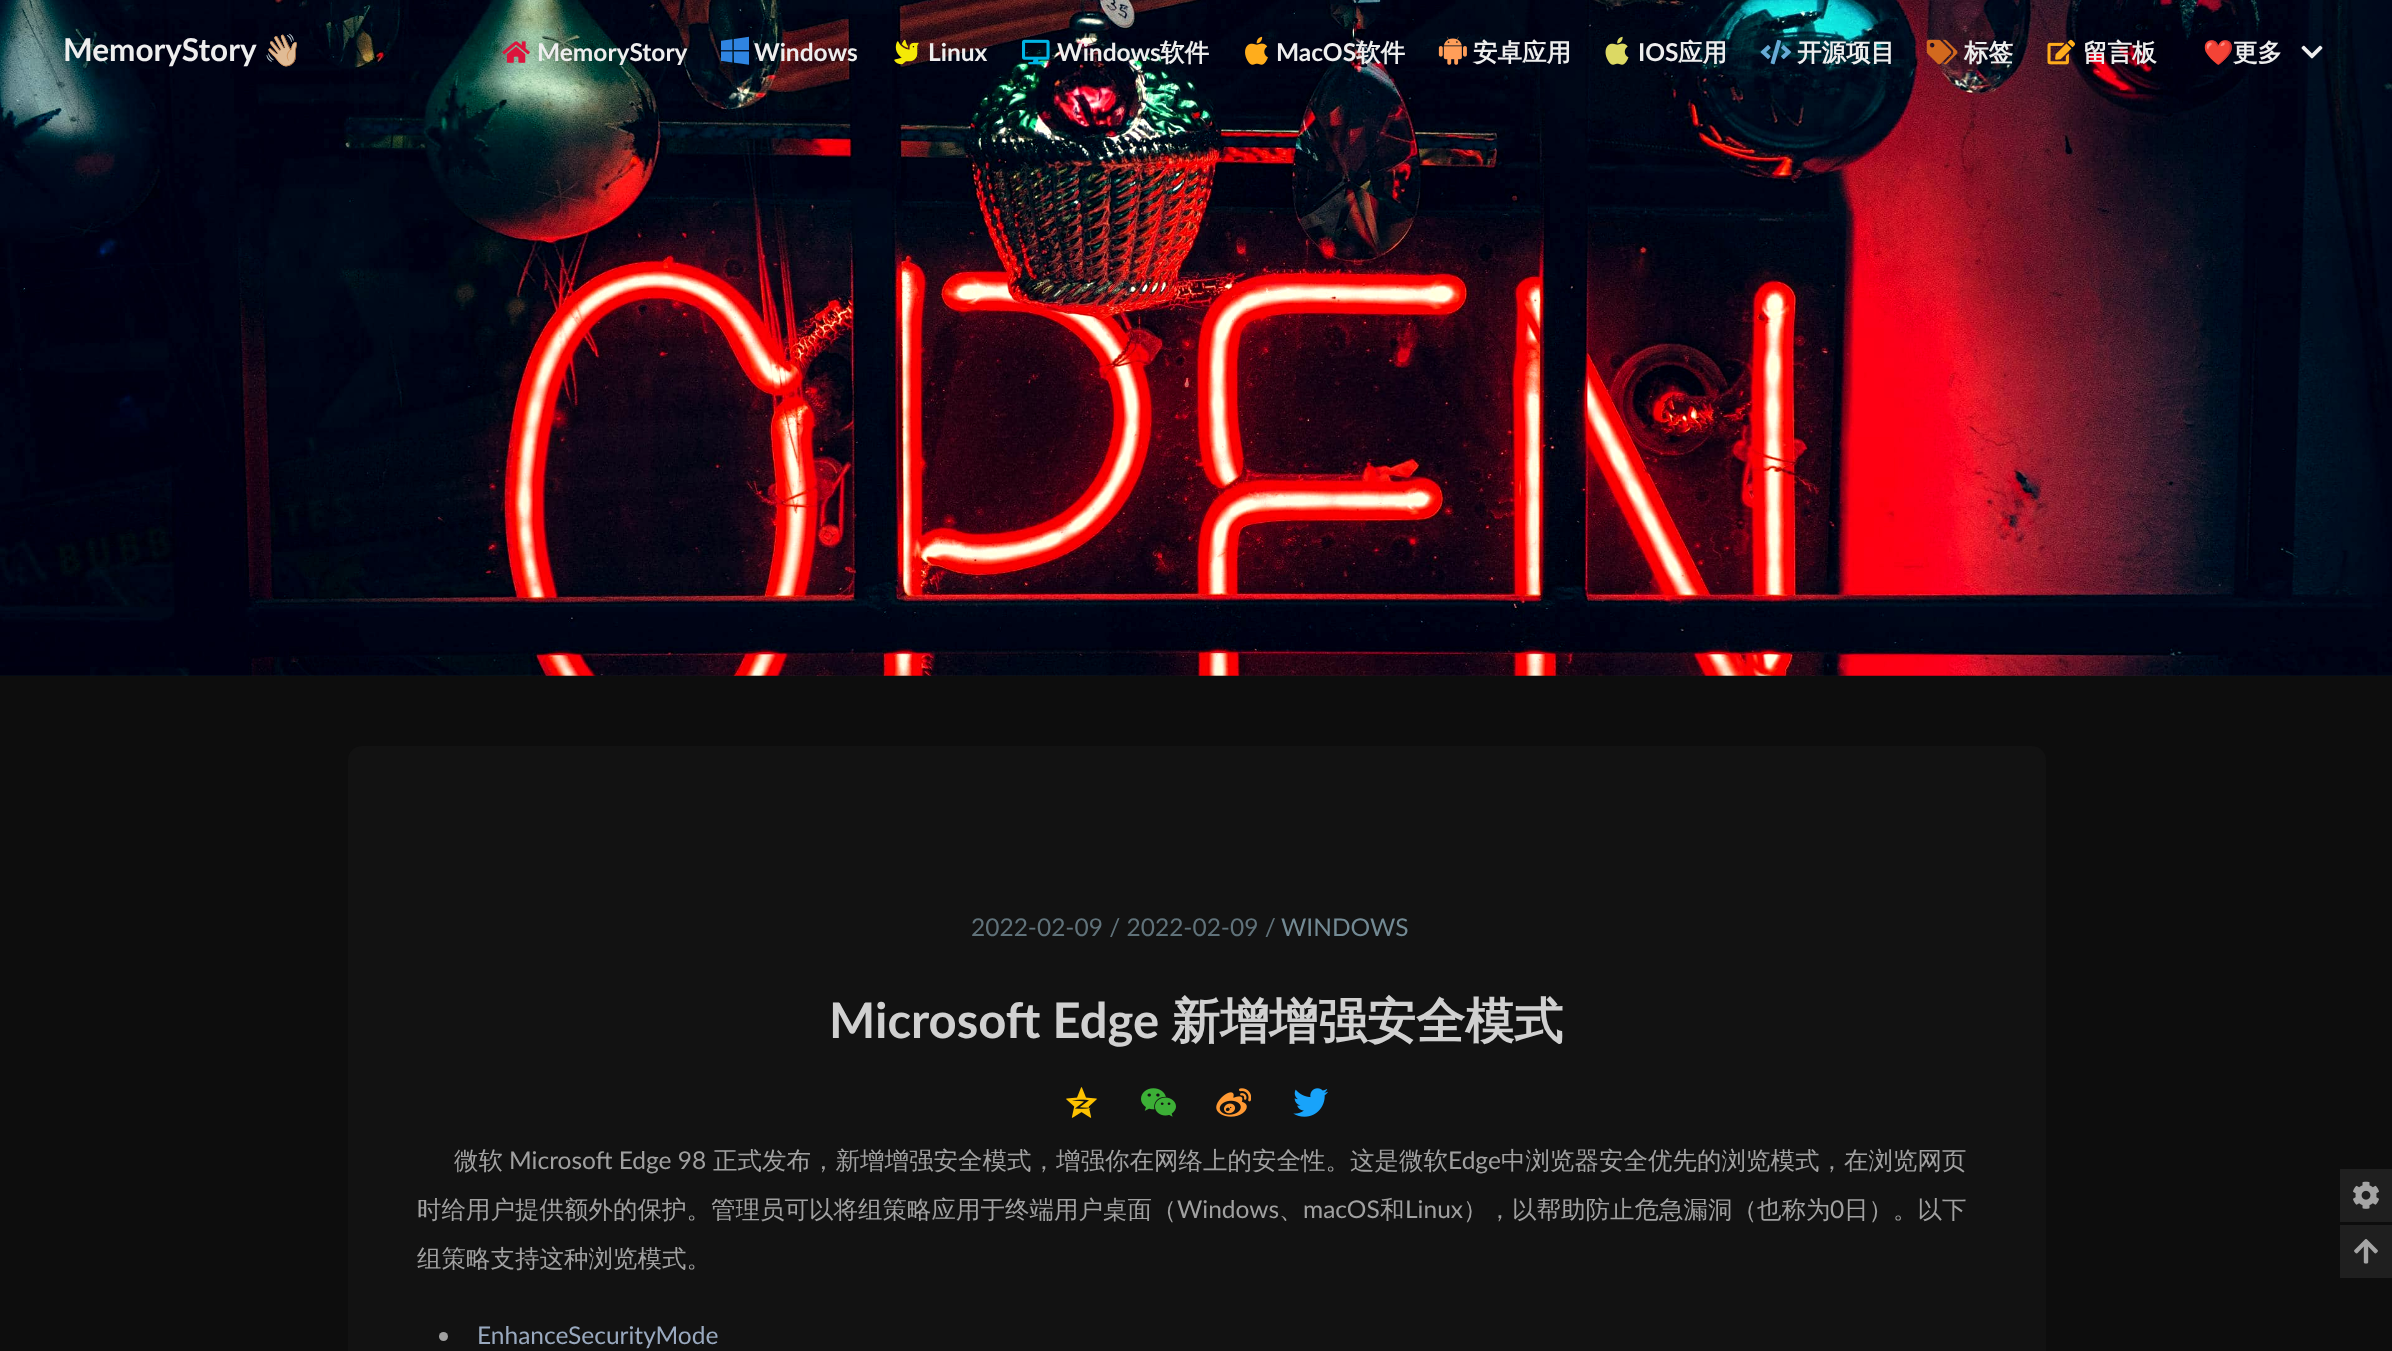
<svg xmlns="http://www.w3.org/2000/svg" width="2392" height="1351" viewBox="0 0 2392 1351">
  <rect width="100%" height="100%" fill="rgb(13,13,13)"/>
  <image x="0" y="675" width="2392" height="1" href="pic1.png"/>
  <image x="0" y="0" width="2392" height="676" href="pic2.png"/>
  <text x="63" y="61" font-family="Lato" font-size="31.5" font-weight="bold" fill="rgb(238,238,238)">MemoryStory</text>
  <text x="263" y="61" font-family="Noto Color Emoji" font-size="31.5" font-weight="bold" fill="rgb(238,238,238)">👋🏼</text>
  <image x="502" y="41" width="28" height="22" href="pic3.png"/>
  <text x="537" y="61" font-family="Lato" font-size="24.5" font-weight="bold" fill="rgb(238,238,238)">MemoryStory</text>
  <image x="721" y="36" width="28" height="29" href="pic4.png"/>
  <text x="754" y="61" font-family="Lato" font-size="24.5" font-weight="bold" fill="rgb(238,238,238)">Windows</text>
  <image x="894" y="39" width="25" height="26" href="pic5.png"/>
  <text x="928" y="61" font-family="Lato" font-size="24.5" font-weight="bold" fill="rgb(238,238,238)">Linux</text>
  <image x="1022" y="39" width="28" height="26" href="pic6.png"/>
  <text x="1057" y="61" font-family="Lato" font-size="24.5" font-weight="bold" fill="rgb(238,238,238)">Windows</text>
  <text x="1160" y="61" font-family="WenQuanYi Zen Hei" font-size="24.5" font-weight="bold" fill="rgb(238,238,238)">软件</text>
  <image x="1245" y="36" width="23" height="29" href="pic7.png"/>
  <text x="1276" y="61" font-family="Lato" font-size="24.5" font-weight="bold" fill="rgb(238,238,238)">MacOS</text>
  <text x="1356" y="61" font-family="WenQuanYi Zen Hei" font-size="24.5" font-weight="bold" fill="rgb(238,238,238)">软件</text>
  <image x="1438" y="36" width="29" height="29" href="pic8.png"/>
  <text x="1473" y="61" font-family="WenQuanYi Zen Hei" font-size="24.5" font-weight="bold" fill="rgb(238,238,238)">安卓应用</text>
  <image x="1605" y="36" width="24" height="29" href="pic9.png"/>
  <text x="1638" y="61" font-family="Lato" font-size="24.5" font-weight="bold" fill="rgb(238,238,238)">IOS</text>
  <text x="1678" y="61" font-family="WenQuanYi Zen Hei" font-size="24.5" font-weight="bold" fill="rgb(238,238,238)">应用</text>
  <image x="1760" y="39" width="32" height="26" href="pic10.png"/>
  <text x="1797" y="61" font-family="WenQuanYi Zen Hei" font-size="24.5" font-weight="bold" fill="rgb(238,238,238)">开源项目</text>
  <image x="1926" y="39" width="32" height="26" href="pic11.png"/>
  <text x="1964" y="61" font-family="WenQuanYi Zen Hei" font-size="24.5" font-weight="bold" fill="rgb(238,238,238)">标签</text>
  <image x="2047" y="39" width="28" height="26" href="pic12.png"/>
  <text x="2083" y="61" font-family="WenQuanYi Zen Hei" font-size="24.5" font-weight="bold" fill="rgb(238,238,238)">留言板</text>
  <text x="2203" y="61" font-family="Noto Color Emoji" font-size="24.5" font-weight="bold" fill="rgb(238,238,238)">❤️</text>
  <text x="2233" y="61" font-family="WenQuanYi Zen Hei" font-size="24.5" font-weight="bold" fill="rgb(238,238,238)">更多</text>
  <image x="2301" y="45" width="22" height="14" href="pic13.png"/>
  <rect x="348" y="746" width="1698" height="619" rx="14" fill="rgb(18,18,18)"/>
  <text x="971" y="936" font-family="Lato" font-size="24.5" fill="rgb(96,114,122)">2022-02-09 / 2022-02-09 /</text>
  <text x="1281" y="936" font-family="Lato" font-size="24.5" fill="rgb(115,138,148)">WINDOWS</text>
  <text x="829" y="1038" font-family="Lato" font-size="49" font-weight="bold" fill="rgb(208,208,208)">Microsoft Edge</text>
  <text x="1171" y="1038" font-family="WenQuanYi Zen Hei" font-size="49" font-weight="bold" fill="rgb(208,208,208)">新增增强安全模式</text>
  <image x="1066" y="1087" width="31" height="31" href="pic14.png"/>
  <image x="1141" y="1088" width="35" height="29" href="pic15.png"/>
  <image x="1216" y="1088" width="35" height="29" href="pic16.png"/>
  <image x="1293" y="1088" width="35" height="29" href="pic17.png"/>
  <text x="454" y="1169" font-family="WenQuanYi Zen Hei" font-size="24.5" font-weight="500" fill="rgb(160,160,160)">微软</text>
  <text x="509" y="1169" font-family="Lato" font-size="24.5" fill="rgb(160,160,160)">Microsoft Edge 98</text>
  <text x="713" y="1169" font-family="WenQuanYi Zen Hei" font-size="24.5" font-weight="500" fill="rgb(160,160,160)">正式发布，新增增强安全模式，增强你在网络上的安全性。这是微软</text>
  <text x="1448" y="1169" font-family="Lato" font-size="24.5" fill="rgb(160,160,160)">Edge</text>
  <g font-family="WenQuanYi Zen Hei" font-size="24.5" font-weight="500" fill="rgb(160,160,160)">
    <text x="1501" y="1169">中浏览器安全优先的浏览模式，在浏览网页</text>
    <text x="417" y="1218">时给用户提供额外的保护。管理员可以将组策略应用于终端用户桌面（</text>
  </g>
  <text x="1177" y="1218" font-family="Lato" font-size="24.5" fill="rgb(160,160,160)">Windows</text>
  <text x="1279" y="1218" font-family="WenQuanYi Zen Hei" font-size="24.5" font-weight="500" fill="rgb(160,160,160)">、</text>
  <text x="1303" y="1218" font-family="Lato" font-size="24.5" fill="rgb(160,160,160)">macOS</text>
  <text x="1380" y="1218" font-family="WenQuanYi Zen Hei" font-size="24.5" font-weight="500" fill="rgb(160,160,160)">和</text>
  <text x="1405" y="1218" font-family="Lato" font-size="24.5" fill="rgb(160,160,160)">Linux</text>
  <text x="1463" y="1218" font-family="WenQuanYi Zen Hei" font-size="24.5" font-weight="500" fill="rgb(160,160,160)">），以帮助防止危急漏洞（也称为</text>
  <text x="1830" y="1218" font-family="Lato" font-size="24.5" fill="rgb(160,160,160)">0</text>
  <g font-family="WenQuanYi Zen Hei" font-size="24.5" font-weight="500" fill="rgb(160,160,160)">
    <text x="1844" y="1218">日）。以下</text>
    <text x="417" y="1267">组策略支持这种浏览模式。</text>
  </g>
  <circle cx="443.5" cy="1336.5" r="4.5" fill="rgb(160,160,160)"/>
  <text x="477" y="1344" font-family="Lato" font-size="24.5" fill="rgb(153,169,191)">EnhanceSecurityMode</text>
  <rect x="2340" y="1169" width="52" height="53" fill="rgb(31,31,31)"/>
  <image x="2353" y="1181" width="26" height="28" href="pic18.png"/>
  <rect x="2340" y="1225" width="52" height="53" fill="rgb(31,31,31)"/>
  <image x="2354" y="1239" width="24" height="25" href="pic19.png"/>
</svg>
